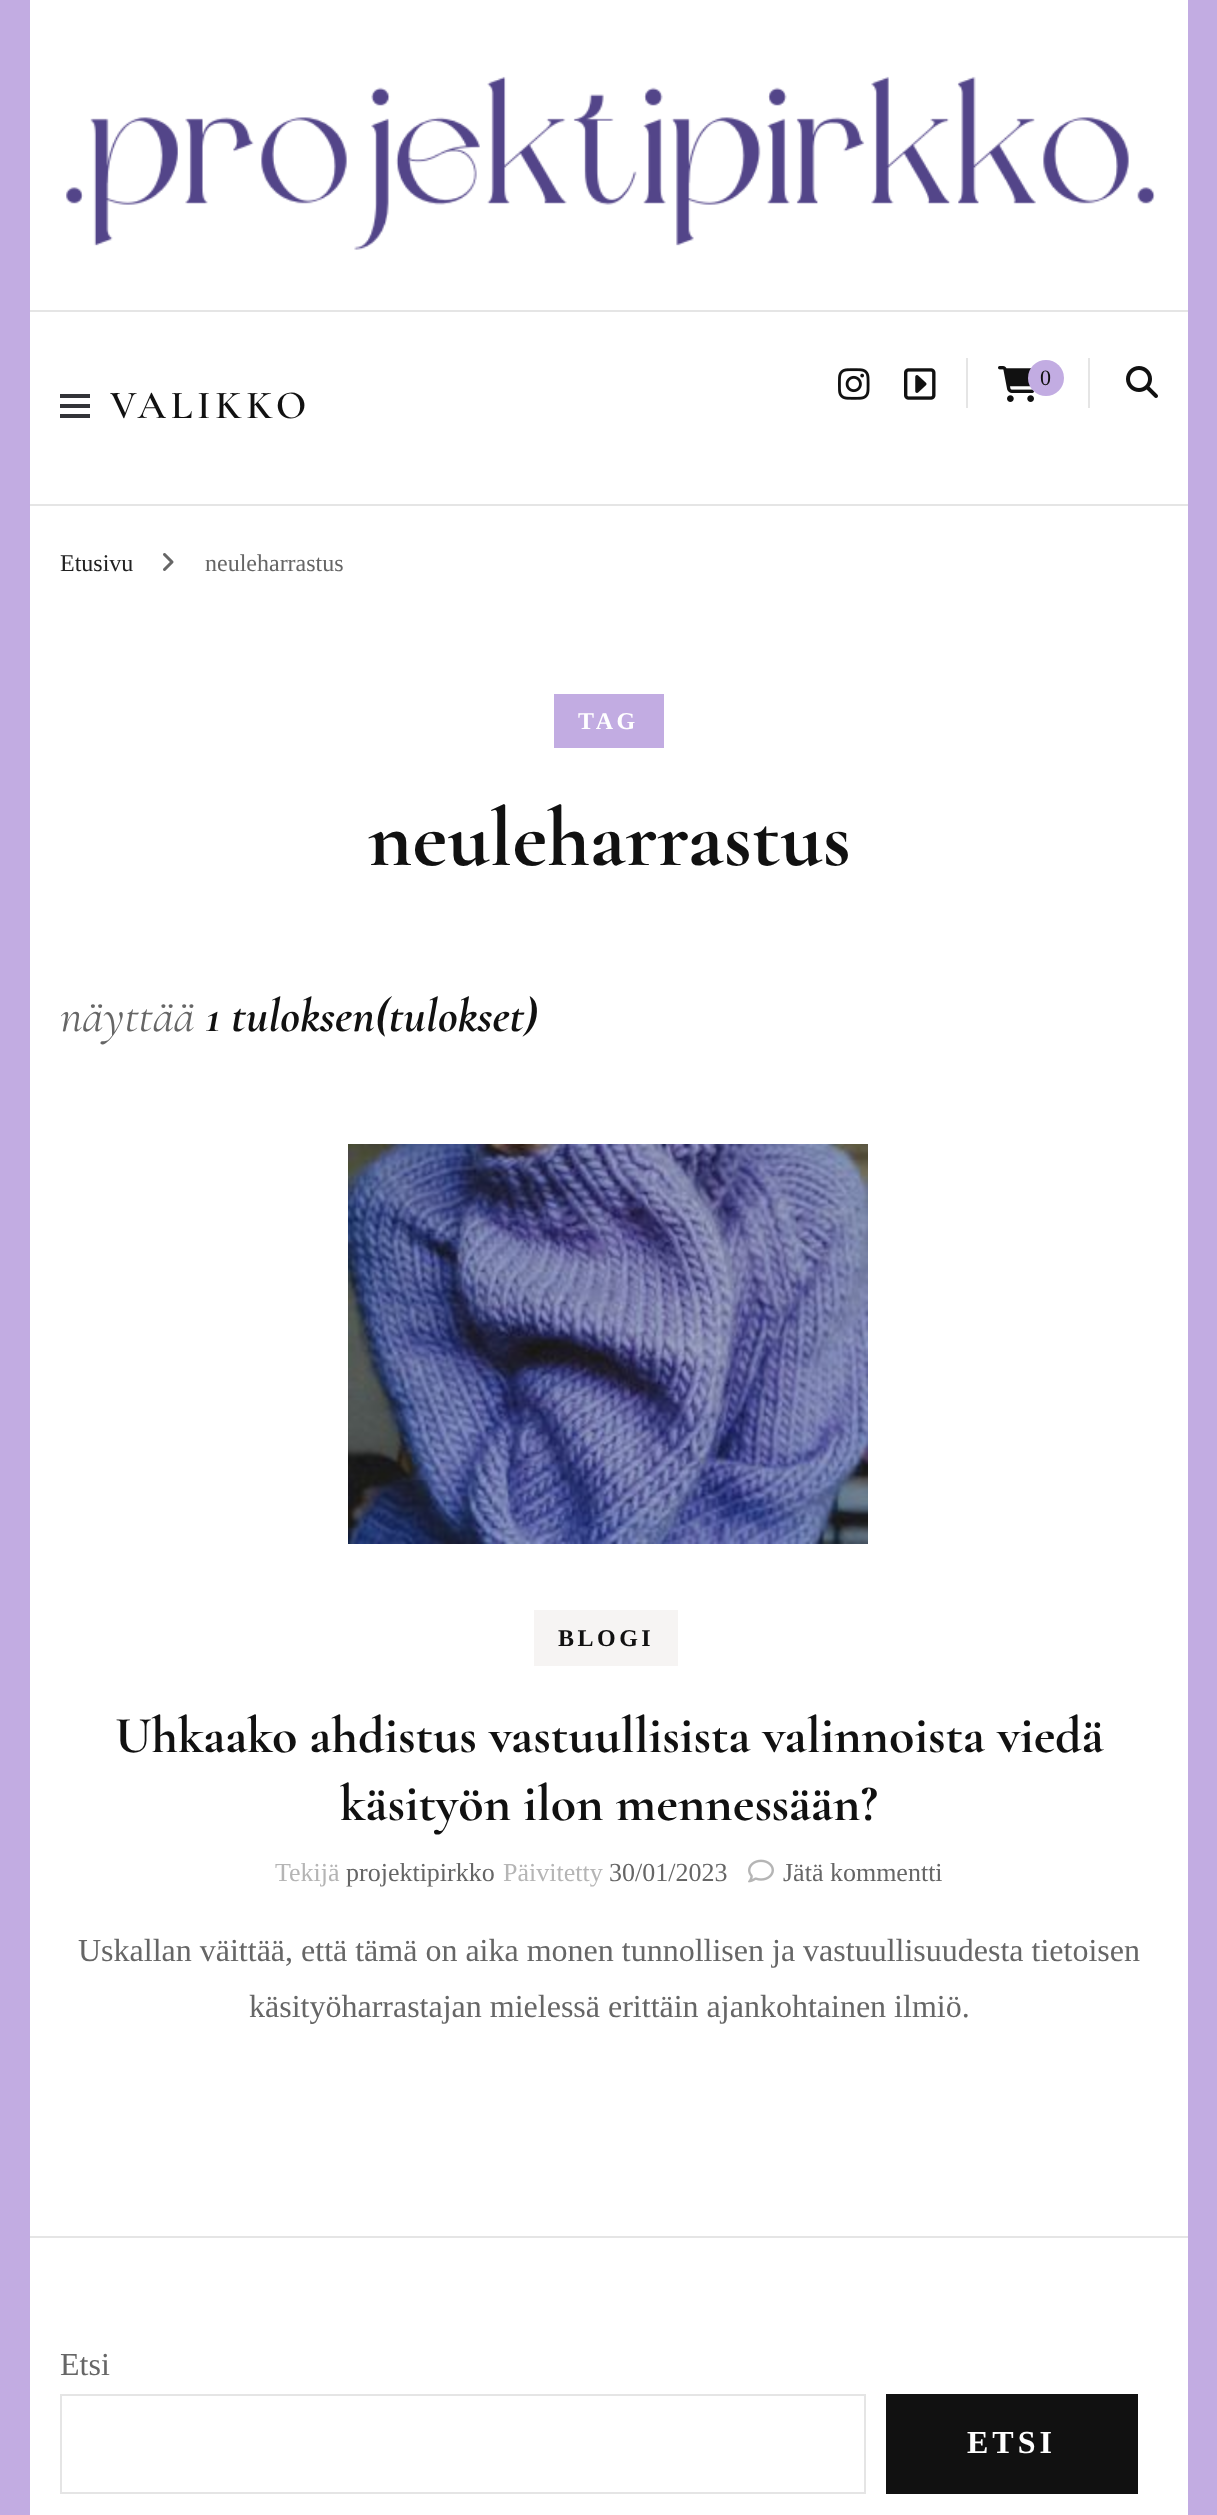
<svg xmlns="http://www.w3.org/2000/svg" width="1217" height="2515" viewBox="0 0 1217 2515">
  <rect width="100%" height="100%" fill="rgb(194,172,226)"/>
  <rect x="30" y="0" width="1158" height="2515" fill="rgb(255,255,255)"/>
  <image x="66" y="76" width="1089" height="174" href="pic1.png"/>
  <rect x="30" y="310" width="1158" height="2" fill="rgb(229,229,229)"/>
  <rect x="30" y="504" width="1158" height="2" fill="rgb(229,229,229)"/>
  <image x="838" y="368" width="32" height="32" href="pic2.png"/>
  <image x="904" y="368" width="32" height="32" href="pic3.png"/>
  <rect x="966" y="358" width="2" height="50" fill="rgb(229,229,229)"/>
  <image x="998" y="366" width="36" height="36" href="pic4.png"/>
  <circle cx="1046" cy="378" r="18" fill="rgb(194,172,226)"/>
  <text x="1040" y="385" font-family="Liberation Serif" font-size="22" fill="rgb(17,17,17)">0</text>
  <rect x="1088" y="358" width="2" height="50" fill="rgb(229,229,229)"/>
  <image x="1126" y="366" width="32" height="32" href="pic5.png"/>
  <rect x="60" y="404" width="30" height="4" fill="rgb(50,51,56)"/>
  <rect x="60" y="394" width="30" height="4" fill="rgb(50,51,56)"/>
  <rect x="60" y="414" width="30" height="4" fill="rgb(50,51,56)"/>
  <text x="110" y="418" font-family="Cormorant Garamond" font-size="40" font-weight="600" letter-spacing="4.75" fill="rgb(17,17,17)">VALIKKO</text>
  <text x="60" y="571" font-family="Liberation Serif" font-size="24" fill="rgb(34,34,34)">Etusivu</text>
  <image x="163" y="553" width="11" height="18" href="pic6.png"/>
  <text x="205" y="571" font-family="Liberation Serif" font-size="24" fill="rgb(102,102,102)">neuleharrastus</text>
  <rect x="554" y="694" width="110" height="54" fill="rgb(194,172,226)"/>
  <text x="578" y="729" font-family="Liberation Serif" font-size="24" font-weight="bold" letter-spacing="3.5" fill="rgb(255,255,255)">TAG</text>
  <text x="368" y="865" font-family="Cormorant Garamond" font-size="84" font-weight="bold" fill="rgb(17,17,17)">neuleharrastus</text>
  <text x="60" y="1031" font-family="Cormorant Garamond" font-size="48" font-style="italic" fill="rgb(102,102,102)">näyttää</text>
  <text x="206" y="1031" font-family="Cormorant Garamond" font-size="48" font-weight="bold" font-style="italic" fill="rgb(17,17,17)">1 tuloksen(tulokset)</text>
  <image x="348" y="1144" width="520" height="400" href="pic7.png"/>
  <rect x="534" y="1610" width="144" height="56" fill="rgb(246,244,243)"/>
  <text x="558" y="1646" font-family="Liberation Serif" font-size="24" font-weight="bold" letter-spacing="3.5" fill="rgb(17,17,17)">BLOGI</text>
  <g font-family="Cormorant Garamond" font-size="52" font-weight="bold" fill="rgb(17,17,17)">
    <text x="115" y="1752">Uhkaako ahdistus vastuullisista valinnoista viedä</text>
    <text x="340" y="1820">käsityön ilon mennessään?</text>
  </g>
  <text x="275" y="1881" font-family="Liberation Serif" font-size="26" fill="rgb(181,181,181)">Tekijä</text>
  <text x="346" y="1881" font-family="Liberation Serif" font-size="26" fill="rgb(102,102,102)">projektipirkko</text>
  <text x="503" y="1881" font-family="Liberation Serif" font-size="26" fill="rgb(181,181,181)">Päivitetty</text>
  <text x="609" y="1881" font-family="Liberation Serif" font-size="26" fill="rgb(102,102,102)">30/01/2023</text>
  <image x="748" y="1859" width="26" height="24" href="pic8.png"/>
  <text x="783" y="1881" font-family="Liberation Serif" font-size="26" fill="rgb(102,102,102)">Jätä kommentti</text>
  <g font-family="Liberation Serif" font-size="32" fill="rgb(102,102,102)">
    <text x="78" y="1961">Uskallan väittää, että tämä on aika monen tunnollisen ja vastuullisuudesta tietoisen</text>
    <text x="249" y="2017">käsityöharrastajan mielessä erittäin ajankohtainen ilmiö.</text>
  </g>
  <rect x="30" y="2236" width="1158" height="2" fill="rgb(229,229,229)"/>
  <text x="60" y="2375" font-family="Liberation Serif" font-size="32" fill="rgb(102,102,102)">Etsi</text>
  <rect x="61" y="2395" width="804" height="98" fill="none" stroke="rgb(229,229,229)" stroke-width="2"/>
  <rect x="886" y="2394" width="252" height="100" fill="rgb(17,17,17)"/>
  <text x="967" y="2453" font-family="Liberation Serif" font-size="32" font-weight="bold" letter-spacing="4" fill="rgb(255,255,255)">ETSI</text>
</svg>
